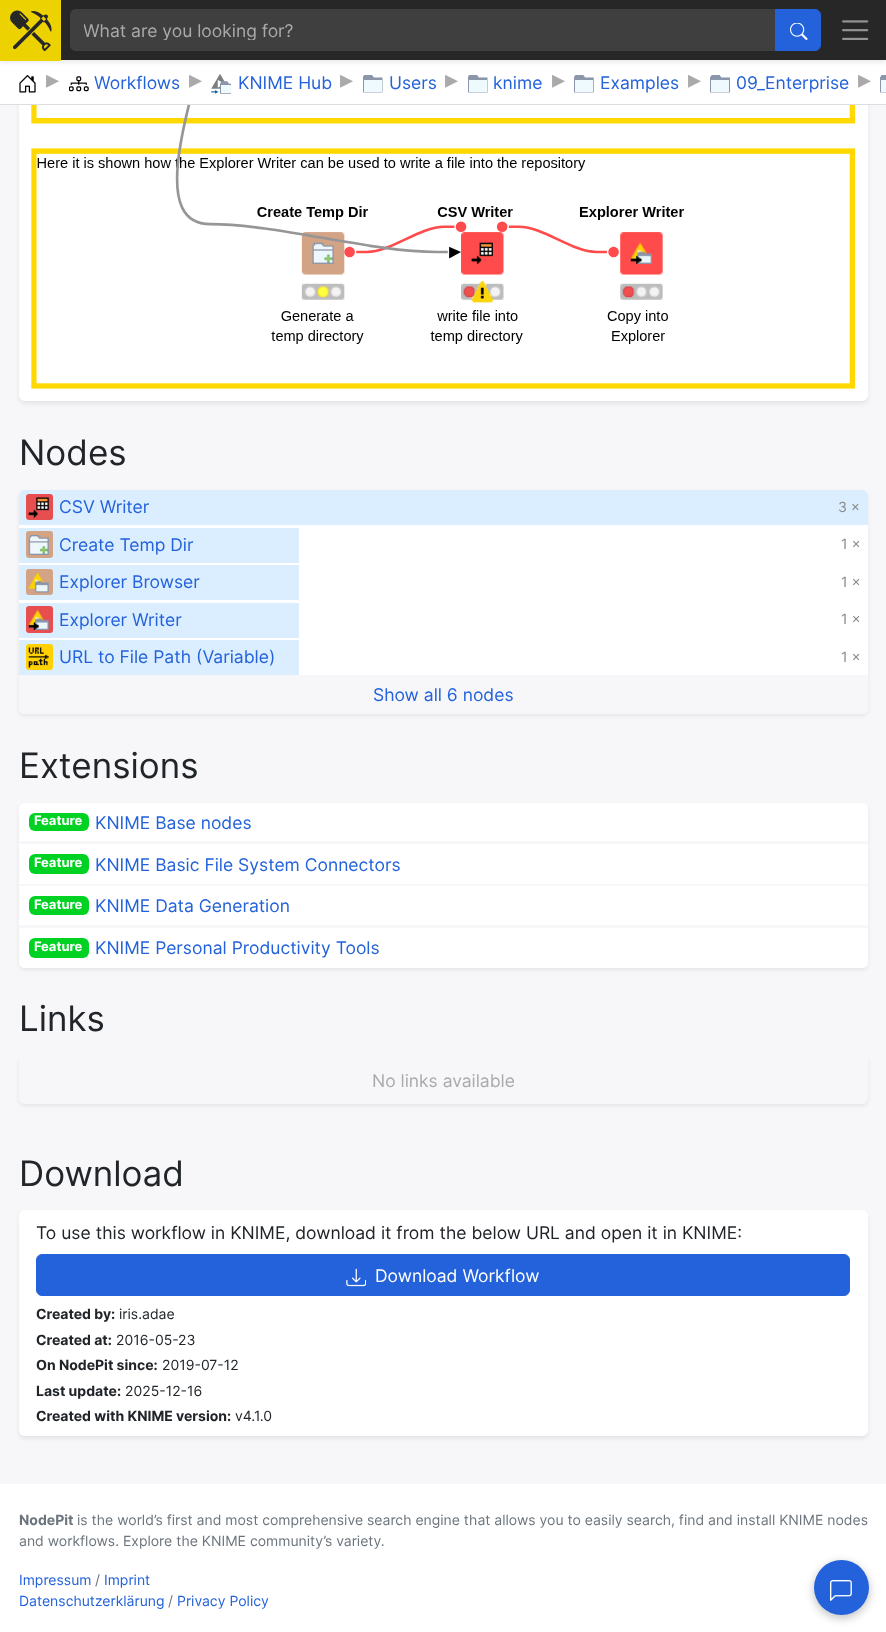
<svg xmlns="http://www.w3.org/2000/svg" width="886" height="1632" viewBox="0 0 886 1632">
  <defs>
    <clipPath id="clip1"><rect x="84" y="19" width="680" height="21"/></clipPath>
    <clipPath id="clip2"><path d="M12 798H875V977H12ZM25 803H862C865.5 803 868 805.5 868 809V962C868 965.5 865.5 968 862 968H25C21.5 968 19 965.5 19 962V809C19 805.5 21.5 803 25 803Z" clip-rule="evenodd"/></clipPath>
  </defs>
  <rect width="100%" height="100%" fill="rgb(247,247,250)"/>
  <rect x="19" y="-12" width="849" height="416" rx="6" fill="rgba(0,0,0,0.07)" filter="blur(2px)"/>
  <rect x="19" y="-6" width="849" height="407" rx="6" fill="rgb(255,255,255)"/>
  <rect x="0" y="60" width="886" height="44" fill="rgb(255,255,255)"/>
  <rect x="0" y="3" width="886" height="60" fill="rgba(0,0,0,0.07)" filter="blur(2px)"/>
  <rect x="61" y="0" width="825" height="60" fill="rgb(39,39,39)"/>
  <rect x="0" y="0" width="61" height="61" fill="rgb(237,210,2)"/>
  <image x="10" y="10" width="42" height="42" href="pic1.png"/>
  <path d="M76 9H776V51H76C72.5 51 70 48.5 70 45V15C70 11.5 72.5 9 76 9Z" fill="rgb(63,63,63)"/>
  <g clip-path="url(#clip1)">
    <text x="83" y="37" font-family="Inter" font-size="17.5" fill="rgb(170,170,170)">What are you looking for?</text>
  </g>
  <path d="M775.5 9.5H815C818 9.5 820.5 12 820.5 15V45C820.5 48 818 50.5 815 50.5H775.5Z" fill="rgb(35,98,218)" stroke="rgb(35,98,218)"/>
  <image x="790" y="23" width="18" height="17" href="pic2.png"/>
  <image x="842" y="20" width="27" height="20" href="pic3.png"/>
  <rect x="0" y="104" width="886" height="1" fill="rgb(221,221,221)"/>
  <image x="19" y="75" width="17" height="18" href="pic4.png"/>
  <text x="46" y="88" font-family="DejaVu Sans" font-size="26" fill="rgb(170,170,170)">▸</text>
  <image x="69" y="76" width="20" height="16" href="pic5.png"/>
  <text x="94" y="89" font-family="Inter" font-size="17.5" fill="rgb(35,98,218)">Workflows</text>
  <text x="189" y="88" font-family="DejaVu Sans" font-size="26" fill="rgb(170,170,170)">▸</text>
  <image x="211" y="74" width="20" height="20" href="pic6.png"/>
  <text x="238" y="89" font-family="Inter" font-size="17.5" fill="rgb(35,98,218)">KNIME Hub</text>
  <text x="340" y="88" font-family="DejaVu Sans" font-size="26" fill="rgb(170,170,170)">▸</text>
  <image x="363" y="75" width="20" height="18" href="pic7.png"/>
  <text x="389" y="89" font-family="Inter" font-size="17.5" fill="rgb(35,98,218)">Users</text>
  <text x="445" y="88" font-family="DejaVu Sans" font-size="26" fill="rgb(170,170,170)">▸</text>
  <image x="468" y="75" width="20" height="18" href="pic7.png"/>
  <text x="493" y="89" font-family="Inter" font-size="17.5" fill="rgb(35,98,218)">knime</text>
  <text x="552" y="88" font-family="DejaVu Sans" font-size="26" fill="rgb(170,170,170)">▸</text>
  <image x="574" y="75" width="20" height="18" href="pic8.png"/>
  <text x="600" y="89" font-family="Inter" font-size="17.5" fill="rgb(35,98,218)">Examples</text>
  <text x="688" y="88" font-family="DejaVu Sans" font-size="26" fill="rgb(170,170,170)">▸</text>
  <image x="710" y="75" width="20" height="18" href="pic9.png"/>
  <text x="736" y="89" font-family="Inter" font-size="17.5" fill="rgb(35,98,218)">09_Enterprise</text>
  <text x="858" y="88" font-family="DejaVu Sans" font-size="26" fill="rgb(170,170,170)">▸</text>
  <image x="880" y="75" width="6" height="18" href="pic10.png"/>
  <image x="31" y="105" width="824" height="284" href="pic11.png"/>
  <text x="19" y="465" font-family="Inter" font-size="35" fill="rgb(33,37,41)">Nodes</text>
  <rect x="19" y="493" width="849" height="223" rx="6" fill="rgba(0,0,0,0.07)" filter="blur(2px)"/>
  <rect x="19" y="490" width="849" height="224" rx="6" fill="rgb(255,255,255)"/>
  <path d="M25 490H862C865.5 490 868 492.5 868 496V525H19V496C19 492.5 21.5 490 25 490Z" fill="rgb(219,238,255)"/>
  <rect x="26" y="494" width="27" height="26" rx="3" fill="rgb(230,78,79)"/>
  <image x="28" y="497" width="21" height="21" href="pic12.png"/>
  <text x="59" y="513" font-family="Inter" font-size="17.5" fill="rgb(35,98,218)">CSV Writer</text>
  <text x="838" y="512" font-family="Inter" font-size="14" fill="rgb(136,136,136)">3 ×</text>
  <rect x="19" y="528" width="280" height="35" fill="rgb(219,238,255)"/>
  <rect x="26" y="531" width="27" height="27" rx="3" fill="rgb(210,163,132)"/>
  <image x="28" y="535" width="21" height="20" href="pic13.png"/>
  <text x="59" y="551" font-family="Inter" font-size="17.5" fill="rgb(35,98,218)">Create Temp Dir</text>
  <text x="841" y="549" font-family="Inter" font-size="14" fill="rgb(136,136,136)">1 ×</text>
  <rect x="19" y="565" width="280" height="35" fill="rgb(219,238,255)"/>
  <rect x="26" y="569" width="27" height="26" rx="3" fill="rgb(210,163,132)"/>
  <image x="28" y="572" width="21" height="21" href="pic14.png"/>
  <text x="59" y="588" font-family="Inter" font-size="17.5" fill="rgb(35,98,218)">Explorer Browser</text>
  <text x="841" y="587" font-family="Inter" font-size="14" fill="rgb(136,136,136)">1 ×</text>
  <rect x="19" y="603" width="280" height="35" fill="rgb(219,238,255)"/>
  <rect x="26" y="606" width="27" height="27" rx="3" fill="rgb(230,78,79)"/>
  <image x="28" y="610" width="21" height="20" href="pic15.png"/>
  <text x="59" y="626" font-family="Inter" font-size="17.5" fill="rgb(35,98,218)">Explorer Writer</text>
  <text x="841" y="624" font-family="Inter" font-size="14" fill="rgb(136,136,136)">1 ×</text>
  <rect x="19" y="640" width="280" height="35" fill="rgb(219,238,255)"/>
  <rect x="26" y="644" width="27" height="26" rx="3" fill="rgb(255,209,4)"/>
  <image x="28" y="647" width="21" height="21" href="pic16.png"/>
  <text x="59" y="663" font-family="Inter" font-size="17.5" fill="rgb(35,98,218)">URL to File Path (Variable)</text>
  <text x="841" y="662" font-family="Inter" font-size="14" fill="rgb(136,136,136)">1 ×</text>
  <path d="M19 675H868V708C868 711.5 865.5 714 862 714H25C21.5 714 19 711.5 19 708Z" fill="rgb(247,247,250)"/>
  <text x="373" y="701" font-family="Inter" font-size="17.5" fill="rgb(35,98,218)">Show all 6 nodes</text>
  <text x="19" y="778" font-family="Inter" font-size="35" fill="rgb(33,37,41)">Extensions</text>
  <g clip-path="url(#clip2)">
    <rect x="19" y="805" width="849" height="165" rx="6" fill="rgba(0,0,0,0.07)" filter="blur(2px)"/>
  </g>
  <path d="M25 803H862C865.5 803 868 805.5 868 809V841H19V809C19 805.5 21.5 803 25 803Z" fill="rgb(255,255,255)"/>
  <rect x="29" y="813" width="60" height="18" rx="6" fill="rgb(0,210,35)"/>
  <text x="34" y="825" font-family="Inter" font-size="13" font-weight="bold" fill="rgb(255,255,255)">Feature</text>
  <text x="95" y="829" font-family="Inter" font-size="17.5" fill="rgb(35,98,218)">KNIME Base nodes</text>
  <rect x="19" y="844" width="849" height="40" fill="rgb(255,255,255)"/>
  <rect x="29" y="854" width="60" height="20" rx="6" fill="rgb(0,210,35)"/>
  <text x="34" y="867" font-family="Inter" font-size="13" font-weight="bold" fill="rgb(255,255,255)">Feature</text>
  <text x="95" y="871" font-family="Inter" font-size="17.5" fill="rgb(35,98,218)">KNIME Basic File System Connectors</text>
  <rect x="19" y="886" width="849" height="39" fill="rgb(255,255,255)"/>
  <rect x="29" y="896" width="60" height="19" rx="6" fill="rgb(0,210,35)"/>
  <text x="34" y="909" font-family="Inter" font-size="13" font-weight="bold" fill="rgb(255,255,255)">Feature</text>
  <text x="95" y="912" font-family="Inter" font-size="17.5" fill="rgb(35,98,218)">KNIME Data Generation</text>
  <path d="M19 928H868V962C868 965.5 865.5 968 862 968H25C21.5 968 19 965.5 19 962Z" fill="rgb(255,255,255)"/>
  <rect x="29" y="938" width="60" height="20" rx="6" fill="rgb(0,210,35)"/>
  <text x="34" y="951" font-family="Inter" font-size="13" font-weight="bold" fill="rgb(255,255,255)">Feature</text>
  <text x="95" y="954" font-family="Inter" font-size="17.5" fill="rgb(35,98,218)">KNIME Personal Productivity Tools</text>
  <text x="19" y="1031" font-family="Inter" font-size="35" fill="rgb(33,37,41)">Links</text>
  <rect x="19" y="1058" width="849" height="48" rx="6" fill="rgba(0,0,0,0.07)" filter="blur(2px)"/>
  <rect x="19" y="1055" width="849" height="49" rx="6" fill="rgb(247,247,250)"/>
  <text x="372" y="1087" font-family="Inter" font-size="17.5" fill="rgb(170,170,170)">No links available</text>
  <text x="19" y="1186" font-family="Inter" font-size="35" fill="rgb(33,37,41)">Download</text>
  <rect x="19" y="1213" width="849" height="226" rx="6" fill="rgba(0,0,0,0.07)" filter="blur(2px)"/>
  <rect x="19" y="1210" width="849" height="226" rx="6" fill="rgb(255,255,255)"/>
  <text x="36" y="1239" font-family="Inter" font-size="17.5" fill="rgb(33,37,41)">To use this workflow in KNIME, download it from the below URL and open it in KNIME:</text>
  <rect x="36.5" y="1254.5" width="813" height="41" rx="5.5" fill="rgb(35,98,218)" stroke="rgb(35,98,218)"/>
  <image x="346" y="1268" width="20" height="19" href="pic17.png"/>
  <text x="375" y="1282" font-family="Inter" font-size="17.5" fill="rgb(255,255,255)">Download Workflow</text>
  <text x="36" y="1319" font-family="Inter" font-size="14" font-weight="bold" fill="rgb(33,37,41)">Created by:</text>
  <text x="119" y="1319" font-family="Inter" font-size="14" fill="rgb(33,37,41)">iris.adae</text>
  <text x="36" y="1345" font-family="Inter" font-size="14" font-weight="bold" fill="rgb(33,37,41)">Created at:</text>
  <text x="116" y="1345" font-family="Inter" font-size="14" fill="rgb(33,37,41)">2016-05-23</text>
  <text x="36" y="1370" font-family="Inter" font-size="14" font-weight="bold" fill="rgb(33,37,41)">On NodePit since:</text>
  <text x="162" y="1370" font-family="Inter" font-size="14" fill="rgb(33,37,41)">2019-07-12</text>
  <text x="36" y="1396" font-family="Inter" font-size="14" font-weight="bold" fill="rgb(33,37,41)">Last update:</text>
  <text x="125" y="1396" font-family="Inter" font-size="14" fill="rgb(33,37,41)">2025-12-16</text>
  <text x="36" y="1421" font-family="Inter" font-size="14" font-weight="bold" fill="rgb(33,37,41)">Created with KNIME version:</text>
  <text x="235" y="1421" font-family="Inter" font-size="14" fill="rgb(33,37,41)">v4.1.0</text>
  <rect x="0" y="1484" width="886" height="148" fill="rgb(255,255,255)"/>
  <text x="19" y="1525" font-family="Inter" font-size="14" font-weight="bold" fill="rgb(108,117,125)">NodePit</text>
  <g font-family="Inter" font-size="14" fill="rgb(108,117,125)">
    <text x="77" y="1525">is the world’s first and most comprehensive search engine that allows you to easily search, find and install KNIME nodes</text>
    <text x="19" y="1546">and workflows. Explore the KNIME community’s variety.</text>
  </g>
  <text x="19" y="1585" font-family="Inter" font-size="14" fill="rgb(35,98,218)">Impressum</text>
  <text x="95" y="1585" font-family="Inter" font-size="14" fill="rgb(108,117,125)">/</text>
  <g font-family="Inter" font-size="14" fill="rgb(35,98,218)">
    <text x="104" y="1585">Imprint</text>
    <text x="19" y="1606">Datenschutzerklärung</text>
  </g>
  <text x="168" y="1606" font-family="Inter" font-size="14" fill="rgb(108,117,125)">/</text>
  <text x="177" y="1606" font-family="Inter" font-size="14" fill="rgb(35,98,218)">Privacy Policy</text>
  <rect x="814" y="1563" width="55" height="55" rx="27.5" fill="rgba(0,0,0,0.25)" filter="blur(5px)"/>
  <circle cx="841.5" cy="1587.5" r="27.5" fill="rgb(35,98,218)"/>
  <image x="830" y="1580" width="22" height="21" href="pic18.png"/>
</svg>
